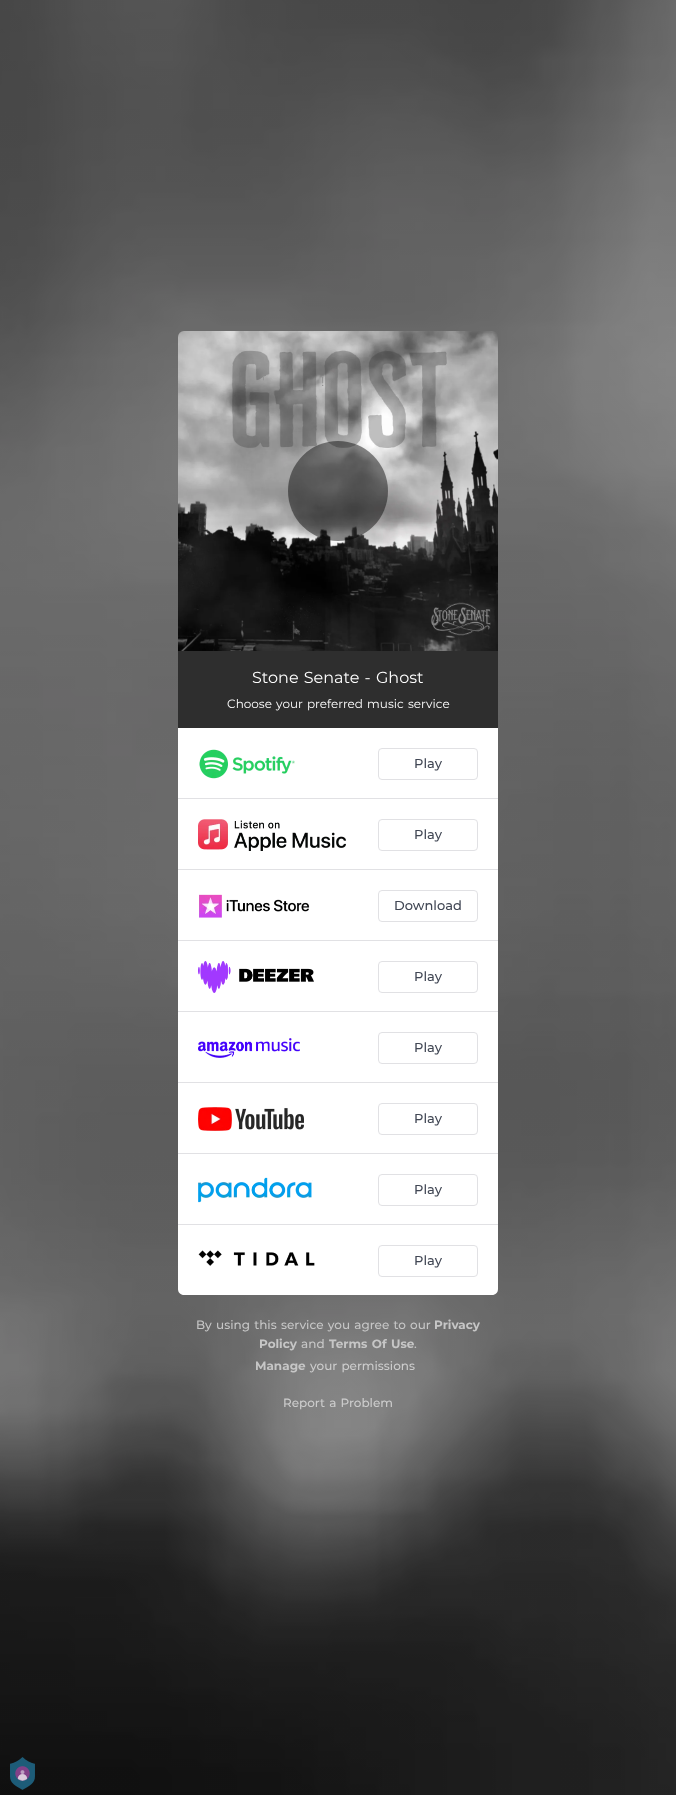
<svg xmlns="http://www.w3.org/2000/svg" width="676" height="1795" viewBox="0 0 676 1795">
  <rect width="100%" height="100%" fill="rgb(255,255,255)"/>
  <image x="0" y="0" width="676" height="1795" href="pic1.png"/>
  <image x="178" y="331" width="320" height="320" href="pic2.png"/>
  <circle cx="338" cy="491" r="50" fill="rgba(0,0,0,0.45)"/>
  <g font-family="Montserrat" font-size="13" fill="rgb(141,141,141)">
    <text x="262" y="386" word-spacing="1">'</text>
    <text x="321" y="386" word-spacing="1">!</text>
  </g>
  <rect x="178" y="651" width="320" height="77" fill="rgb(46,46,46)"/>
  <text x="252" y="683" word-spacing="1" font-family="Montserrat" font-size="16" fill="rgb(255,255,255)">Stone Senate - Ghost</text>
  <text x="227" y="708" word-spacing="1" font-family="Montserrat" font-size="12" fill="rgb(255,255,255)">Choose your preferred music service</text>
  <path d="M178 728H498V1289C498 1292.5 495.5 1295 492 1295H184C180.5 1295 178 1292.5 178 1289Z" fill="rgb(255,255,255)"/>
  <rect x="178" y="798" width="320" height="1" fill="rgb(225,225,228)"/>
  <image x="199" y="749" width="96" height="30" href="pic3.png"/>
  <rect x="378.5" y="748.5" width="99" height="31" rx="3.5" fill="none" stroke="rgb(225,225,228)"/>
  <text x="414" y="768" font-family="Montserrat" font-size="13" font-weight="500" fill="rgb(65,71,84)">Play</text>
  <rect x="178" y="869" width="320" height="1" fill="rgb(225,225,228)"/>
  <image x="198" y="819" width="148" height="32" href="pic4.png"/>
  <rect x="378.5" y="819.5" width="99" height="31" rx="3.5" fill="none" stroke="rgb(225,225,228)"/>
  <text x="414" y="839" font-family="Montserrat" font-size="13" font-weight="500" fill="rgb(65,71,84)">Play</text>
  <rect x="178" y="940" width="320" height="1" fill="rgb(225,225,228)"/>
  <image x="199" y="894" width="111" height="24" href="pic5.png"/>
  <rect x="378.5" y="890.5" width="99" height="31" rx="3.5" fill="none" stroke="rgb(225,225,228)"/>
  <text x="394" y="910" font-family="Montserrat" font-size="13" font-weight="500" fill="rgb(65,71,84)">Download</text>
  <rect x="178" y="1011" width="320" height="1" fill="rgb(225,225,228)"/>
  <image x="198" y="961" width="116" height="32" href="pic6.png"/>
  <rect x="378.5" y="961.5" width="99" height="31" rx="3.5" fill="none" stroke="rgb(225,225,228)"/>
  <text x="414" y="981" font-family="Montserrat" font-size="13" font-weight="500" fill="rgb(65,71,84)">Play</text>
  <rect x="178" y="1082" width="320" height="1" fill="rgb(225,225,228)"/>
  <image x="198" y="1038" width="102" height="20" href="pic7.png"/>
  <rect x="378.5" y="1032.5" width="99" height="31" rx="3.5" fill="none" stroke="rgb(225,225,228)"/>
  <text x="414" y="1052" font-family="Montserrat" font-size="13" font-weight="500" fill="rgb(65,71,84)">Play</text>
  <rect x="178" y="1153" width="320" height="1" fill="rgb(225,225,228)"/>
  <image x="198" y="1107" width="106" height="24" href="pic8.png"/>
  <rect x="378.5" y="1103.5" width="99" height="31" rx="3.5" fill="none" stroke="rgb(225,225,228)"/>
  <text x="414" y="1123" font-family="Montserrat" font-size="13" font-weight="500" fill="rgb(65,71,84)">Play</text>
  <rect x="178" y="1224" width="320" height="1" fill="rgb(225,225,228)"/>
  <image x="198" y="1177" width="115" height="26" href="pic9.png"/>
  <rect x="378.5" y="1174.5" width="99" height="31" rx="3.5" fill="none" stroke="rgb(225,225,228)"/>
  <text x="414" y="1194" font-family="Montserrat" font-size="13" font-weight="500" fill="rgb(65,71,84)">Play</text>
  <image x="198" y="1250" width="117" height="16" href="pic10.png"/>
  <rect x="378.5" y="1245.5" width="99" height="31" rx="3.5" fill="none" stroke="rgb(225,225,228)"/>
  <text x="414" y="1265" font-family="Montserrat" font-size="13" font-weight="500" fill="rgb(65,71,84)">Play</text>
  <text x="196" y="1329" word-spacing="1" font-family="Montserrat" font-size="12" font-weight="500" fill="rgb(198,198,198)">By using this service you agree to our</text>
  <g font-family="Montserrat" font-size="12" font-weight="bold" fill="rgb(198,198,198)">
    <text x="434" y="1329">Privacy</text>
    <text x="259" y="1348">Policy</text>
  </g>
  <text x="301" y="1348" font-family="Montserrat" font-size="12" font-weight="500" fill="rgb(198,198,198)">and</text>
  <text x="329" y="1348" word-spacing="1" font-family="Montserrat" font-size="12" font-weight="bold" fill="rgb(198,198,198)">Terms Of Use</text>
  <text x="414" y="1348" font-family="Montserrat" font-size="12" font-weight="500" fill="rgb(198,198,198)">.</text>
  <text x="255" y="1370" font-family="Montserrat" font-size="12" font-weight="bold" fill="rgb(198,198,198)">Manage</text>
  <g font-family="Montserrat" font-size="12" font-weight="500" fill="rgb(204,204,204)">
    <text x="310" y="1370" word-spacing="1">your permissions</text>
    <text x="283" y="1407" word-spacing="1">Report a Problem</text>
  </g>
  <image x="10" y="1757" width="25" height="33" href="pic11.png"/>
</svg>
